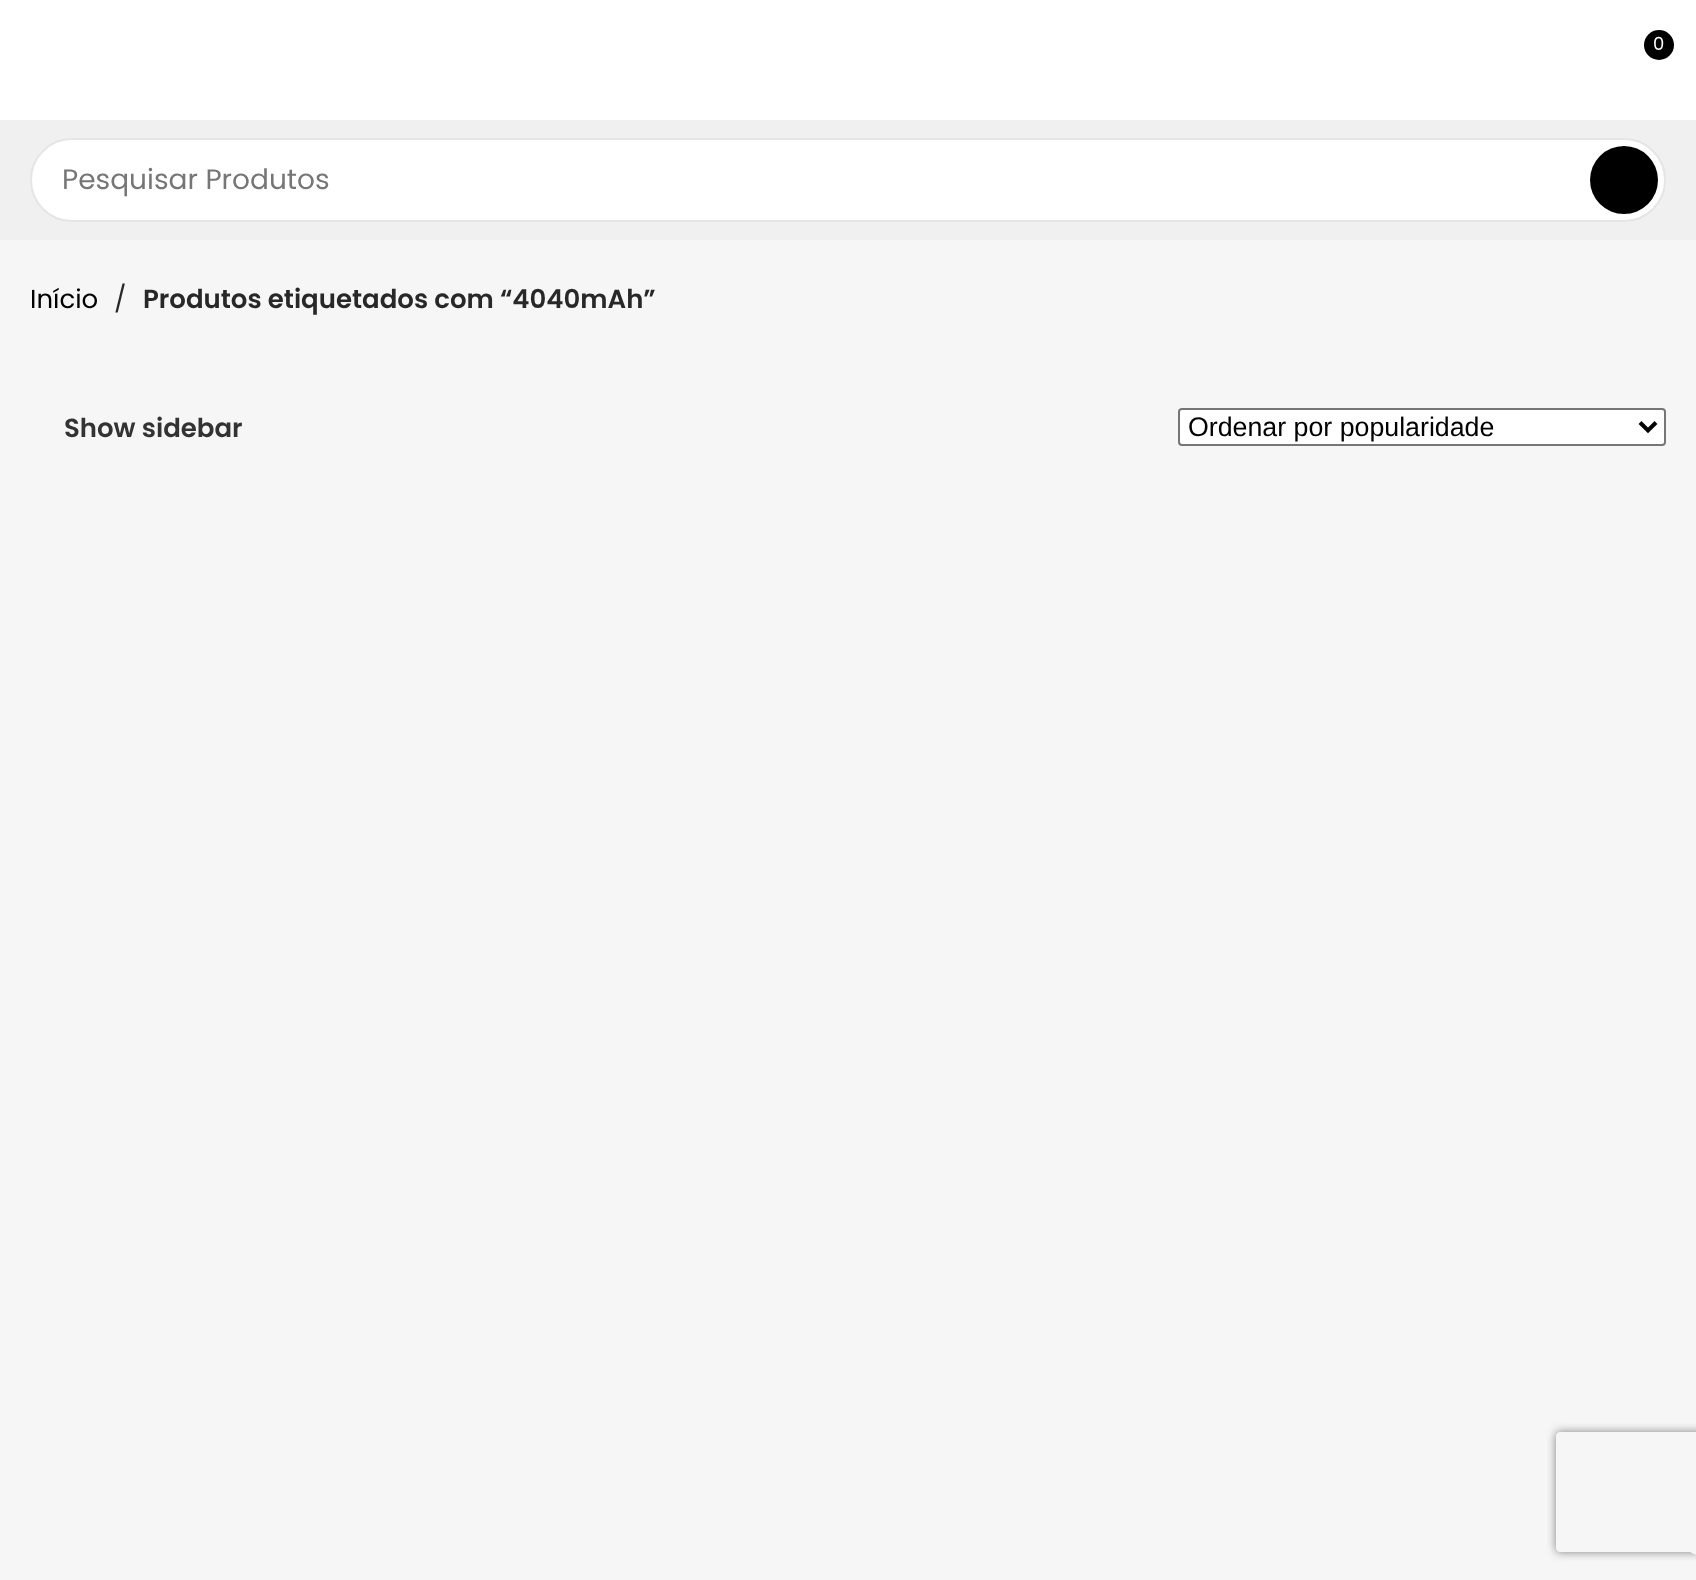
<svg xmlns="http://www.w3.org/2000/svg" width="1696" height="1580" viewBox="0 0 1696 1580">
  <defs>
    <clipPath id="clip1"><path d="M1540 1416H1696V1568H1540ZM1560 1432H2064C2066 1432 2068 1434 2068 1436V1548C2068 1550 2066 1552 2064 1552H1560C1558 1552 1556 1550 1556 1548V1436C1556 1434 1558 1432 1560 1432Z" clip-rule="evenodd"/></clipPath>
  </defs>
  <rect width="100%" height="100%" fill="rgb(255,255,255)"/>
  <circle cx="1659" cy="45" r="15" fill="rgb(0,0,0)"/>
  <text x="1653" y="50" font-family="Poppins" font-size="18" fill="rgb(255,255,255)">0</text>
  <rect x="0" y="120" width="1696" height="120" fill="rgb(240,240,240)"/>
  <rect x="30" y="138" width="1636" height="84" rx="42" fill="rgb(255,255,255)"/>
  <rect x="31" y="139" width="1634" height="82" rx="41" fill="none" stroke="rgba(0,0,0,0.1)" stroke-width="2"/>
  <text x="62" y="189" font-family="Poppins" font-size="28" fill="rgb(118,118,118)">Pesquisar Produtos</text>
  <circle cx="1624" cy="180" r="34" fill="rgb(0,0,0)"/>
  <rect x="0" y="240" width="1696" height="1340" fill="rgb(246,246,246)"/>
  <text x="30" y="308" font-family="Poppins" font-size="26" fill="rgb(0,0,0)">Início</text>
  <text x="114" y="308" font-family="Poppins" font-size="26" fill="rgb(40,40,40)">/</text>
  <text x="143" y="308" font-family="Poppins" font-size="26" font-weight="600" fill="rgb(40,40,40)">Produtos etiquetados com “4040mAh”</text>
  <text x="64" y="437" font-family="Poppins" font-size="26" font-weight="600" fill="rgb(51,51,51)">Show sidebar</text>
  <rect x="1179" y="409" width="486" height="36" rx="3" fill="rgb(255,255,255)" stroke="rgb(118,118,118)" stroke-width="2"/>
  <path d="M1640 422.5L1648 430.5L1656 422.5" fill="none" stroke="rgb(0,0,0)" stroke-width="4"/>
  <text x="1188" y="436" font-family="Liberation Sans" font-size="26.75" fill="rgb(0,0,0)">Ordenar por popularidade</text>
  <g clip-path="url(#clip1)">
    <rect x="1556" y="1432" width="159" height="120" rx="4" fill="rgb(128,128,128)" filter="blur(5px)"/>
  </g>
  <rect x="1672" y="1476" width="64" height="80" rx="40" fill="rgb(246,246,246)"/>
</svg>
